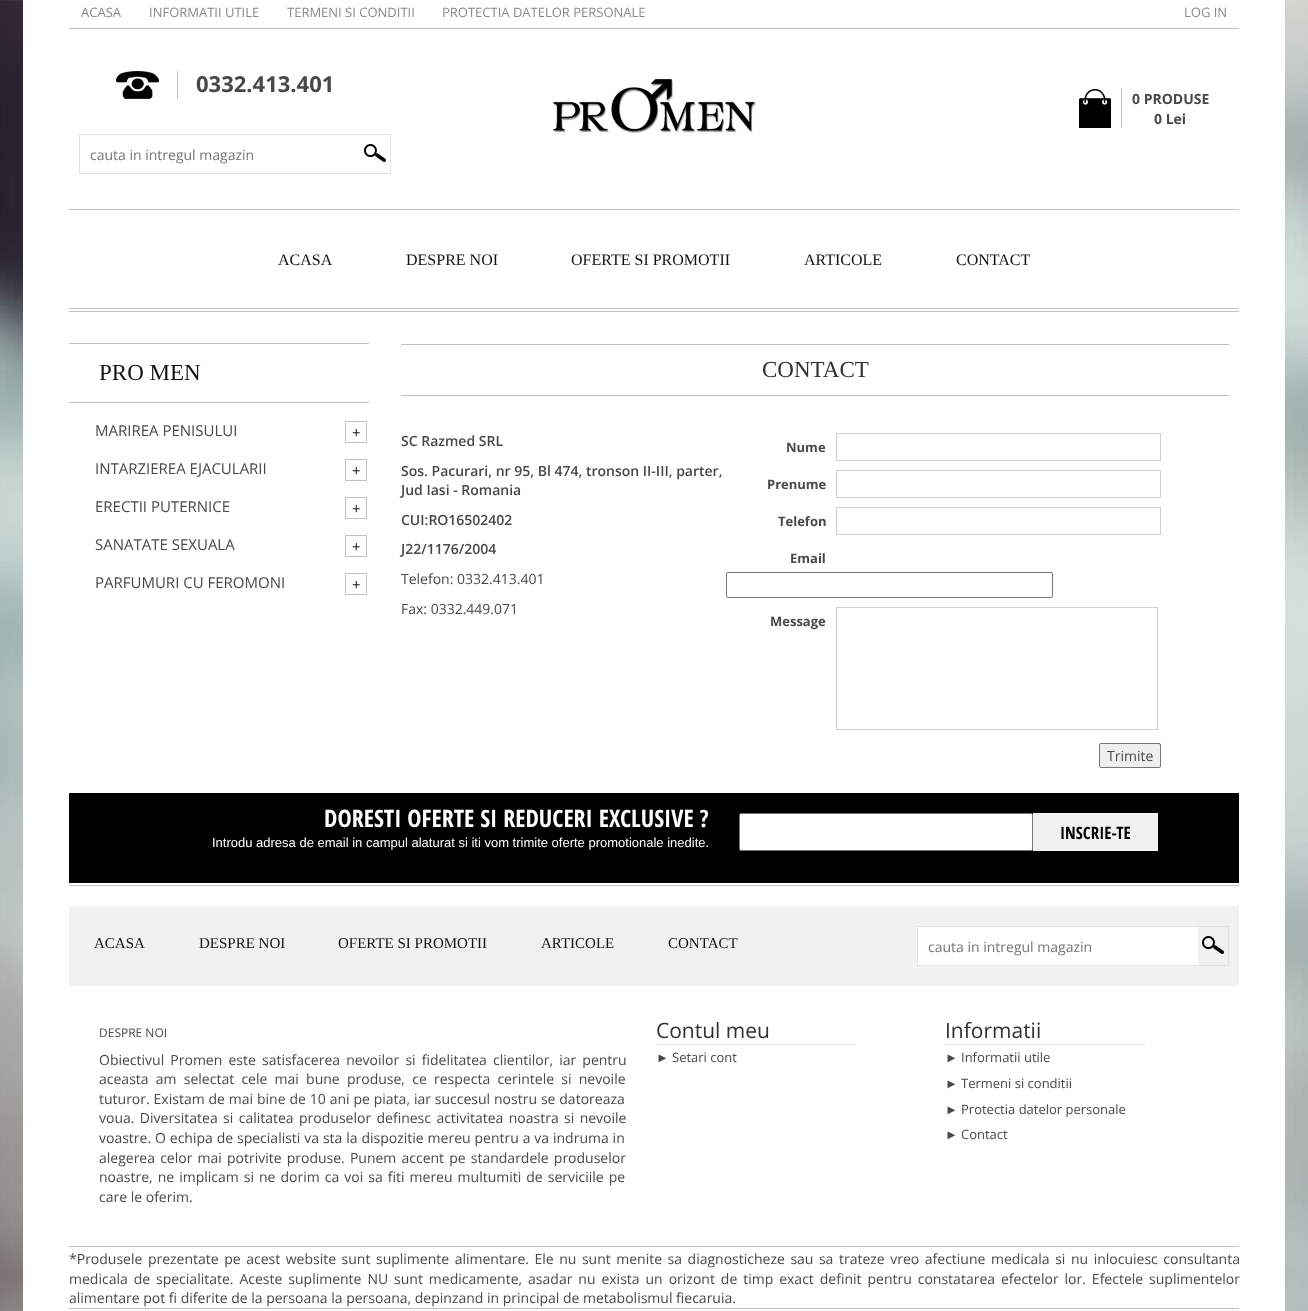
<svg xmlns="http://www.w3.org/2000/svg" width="1308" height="1311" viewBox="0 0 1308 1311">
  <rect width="100%" height="100%" fill="rgb(255,255,255)"/>
  <image x="0" y="0" width="1308" height="1311" href="pic1.png"/>
  <rect x="23" y="0" width="1262" height="1311" fill="rgb(255,255,255)"/>
  <rect x="69" y="28" width="1170" height="1" fill="rgb(193,193,193)"/>
  <g font-family="Open Sans" font-size="13" fill="rgb(137,137,137)">
    <text x="81" y="17">ACASA</text>
    <text x="149" y="17">INFORMATII UTILE</text>
    <text x="287" y="17">TERMENI SI CONDITII</text>
    <text x="442" y="17">PROTECTIA DATELOR PERSONALE</text>
    <text x="1184" y="17">LOG IN</text>
  </g>
  <rect x="69" y="209" width="1170" height="1" fill="rgb(193,193,193)"/>
  <rect x="177" y="71" width="1" height="28" fill="rgb(193,193,193)"/>
  <image x="116" y="71" width="43" height="28" href="pic2.png"/>
  <text x="196" y="92" font-family="Open Sans" font-size="22" font-weight="bold" fill="rgb(72,72,72)">0332.413.401</text>
  <rect x="79.5" y="134.5" width="311" height="39" fill="none" stroke="rgb(227,227,227)"/>
  <text x="90" y="160" font-family="Open Sans" font-size="14" fill="rgb(117,117,117)">cauta in intregul magazin</text>
  <image x="364" y="144" width="22" height="18" href="pic3.png"/>
  <image x="553" y="79" width="203" height="54" href="pic4.png"/>
  <image x="1079" y="89" width="32" height="39" href="pic5.png"/>
  <rect x="1121" y="89" width="1" height="39" fill="rgb(193,193,193)"/>
  <g font-family="Open Sans" font-size="14" font-weight="bold" fill="rgb(72,72,72)">
    <text x="1132" y="104">0 PRODUSE</text>
    <text x="1154" y="124">0 Lei</text>
  </g>
  <rect x="69" y="308" width="1170" height="1" fill="rgb(193,193,193)"/>
  <g font-family="Liberation Serif" font-size="16" fill="rgb(18,18,18)">
    <text x="278" y="265">ACASA</text>
    <text x="406" y="265">DESPRE NOI</text>
    <text x="571" y="265">OFERTE SI PROMOTII</text>
    <text x="804" y="265">ARTICOLE</text>
    <text x="956" y="265">CONTACT</text>
  </g>
  <rect x="69" y="311" width="1170" height="1" fill="rgb(193,193,193)"/>
  <rect x="69" y="343" width="300" height="1" fill="rgb(193,193,193)"/>
  <rect x="69" y="402" width="300" height="1" fill="rgb(193,193,193)"/>
  <text x="99" y="380" font-family="Liberation Serif" font-size="23" fill="rgb(18,18,18)">PRO MEN</text>
  <image x="345" y="421" width="22" height="22" href="pic6.png"/>
  <text x="95" y="436" font-family="Open Sans" font-size="15" fill="rgb(72,72,72)">MARIREA PENISULUI</text>
  <image x="345" y="459" width="22" height="22" href="pic6.png"/>
  <text x="95" y="474" font-family="Open Sans" font-size="15" fill="rgb(72,72,72)">INTARZIEREA EJACULARII</text>
  <image x="345" y="497" width="22" height="22" href="pic6.png"/>
  <text x="95" y="512" font-family="Open Sans" font-size="15" fill="rgb(72,72,72)">ERECTII PUTERNICE</text>
  <image x="345" y="535" width="22" height="22" href="pic6.png"/>
  <text x="95" y="550" font-family="Open Sans" font-size="15" fill="rgb(72,72,72)">SANATATE SEXUALA</text>
  <image x="345" y="573" width="22" height="22" href="pic6.png"/>
  <text x="95" y="588" font-family="Open Sans" font-size="15" fill="rgb(72,72,72)">PARFUMURI CU FEROMONI</text>
  <rect x="401" y="344" width="828" height="1" fill="rgb(193,193,193)"/>
  <rect x="401" y="395" width="828" height="1" fill="rgb(193,193,193)"/>
  <text x="762" y="377" font-family="Liberation Serif" font-size="23" fill="rgb(49,49,49)">CONTACT</text>
  <g font-family="Open Sans" font-size="14" font-weight="600" fill="rgb(72,72,72)">
    <text x="401" y="446">SC Razmed SRL</text>
    <text>
      <tspan x="401" y="476">Sos. Pacurari, nr 95, Bl 474, tronson II-III, parter,</tspan>
      <tspan x="401" y="495">Jud Iasi - Romania</tspan>
    </text>
    <text x="401" y="525">CUI:RO16502402</text>
    <text x="401" y="554">J22/1176/2004</text>
  </g>
  <g font-family="Open Sans" font-size="14" fill="rgb(72,72,72)">
    <text x="401" y="584">Telefon: 0332.413.401</text>
    <text x="401" y="614">Fax: 0332.449.071</text>
  </g>
  <text x="786" y="452" font-family="Open Sans" font-size="13" font-weight="bold" fill="rgb(72,72,72)">Nume</text>
  <rect x="836.5" y="433.5" width="324" height="27" fill="none" stroke="rgb(207,207,207)"/>
  <text x="767" y="489" font-family="Open Sans" font-size="13" font-weight="bold" fill="rgb(72,72,72)">Prenume</text>
  <rect x="836.5" y="470.5" width="324" height="27" fill="none" stroke="rgb(207,207,207)"/>
  <text x="778" y="526" font-family="Open Sans" font-size="13" font-weight="bold" fill="rgb(72,72,72)">Telefon</text>
  <rect x="836.5" y="507.5" width="324" height="27" fill="none" stroke="rgb(207,207,207)"/>
  <text x="790" y="563" font-family="Open Sans" font-size="13" font-weight="bold" fill="rgb(72,72,72)">Email</text>
  <rect x="726.5" y="572.5" width="326" height="25" rx="1.5" fill="none" stroke="rgb(118,118,118)"/>
  <text x="770" y="626" font-family="Open Sans" font-size="13" font-weight="bold" fill="rgb(72,72,72)">Message</text>
  <rect x="836.5" y="607.5" width="321" height="122" fill="none" stroke="rgb(207,207,207)"/>
  <rect x="1099.5" y="743.5" width="61" height="24" rx="1.5" fill="rgb(239,239,239)" stroke="rgb(118,118,118)"/>
  <text x="1107" y="761" font-family="Open Sans" font-size="14" fill="rgb(72,72,72)">Trimite</text>
  <rect x="69" y="793" width="1170" height="90" fill="rgb(0,0,0)"/>
  <text x="324" y="827" font-family="Open Sans Condensed" font-size="24" font-weight="bold" fill="rgb(255,255,255)">DORESTI OFERTE SI REDUCERI EXCLUSIVE ?</text>
  <text x="212" y="847" font-family="Liberation Sans" font-size="13" fill="rgb(255,255,255)">Introdu adresa de email in campul alaturat si iti vom trimite oferte promotionale inedite.</text>
  <rect x="739.5" y="813.5" width="293" height="37" rx="1.5" fill="rgb(255,255,255)" stroke="rgb(118,118,118)"/>
  <rect x="1033" y="813" width="125" height="38" fill="rgb(241,241,241)"/>
  <text x="1060" y="839" font-family="Open Sans Condensed" font-size="17" font-weight="bold" fill="rgb(0,0,0)">INSCRIE-TE</text>
  <rect x="69" y="885" width="1170" height="1" fill="rgb(193,193,193)"/>
  <rect x="69" y="906" width="1170" height="80" fill="rgb(241,241,241)"/>
  <g font-family="Liberation Serif" font-size="15" fill="rgb(18,18,18)">
    <text x="94" y="948">ACASA</text>
    <text x="199" y="948">DESPRE NOI</text>
    <text x="338" y="948">OFERTE SI PROMOTII</text>
    <text x="541" y="948">ARTICOLE</text>
    <text x="668" y="948">CONTACT</text>
  </g>
  <rect x="917.5" y="926.5" width="311" height="39" fill="none" stroke="rgb(227,227,227)"/>
  <rect x="918" y="927" width="280" height="38" fill="rgb(255,255,255)"/>
  <text x="928" y="952" font-family="Open Sans" font-size="14" fill="rgb(117,117,117)">cauta in intregul magazin</text>
  <image x="1202" y="936" width="22" height="18" href="pic7.png"/>
  <rect x="69" y="1246" width="1170" height="1" fill="rgb(193,193,193)"/>
  <text x="99" y="1037" font-family="Open Sans" font-size="12" fill="rgb(72,72,72)">DESPRE NOI</text>
  <g font-family="Open Sans" font-size="14" fill="rgb(72,72,72)">
    <text>
      <tspan x="99" y="1065" word-spacing="2.5">Obiectivul Promen este satisfacerea nevoilor si fidelitatea clientilor, iar pentru</tspan>
      <tspan x="99" y="1084" word-spacing="3.6">aceasta am selectat cele mai bune produse, ce respecta cerintele si nevoile</tspan>
      <tspan x="99" y="1104" word-spacing="0.25">tuturor. Existam de mai bine de 10 ani pe piata, iar succesul nostru se datoreaza</tspan>
      <tspan x="99" y="1123" word-spacing="1.75">voua. Diversitatea si calitatea produselor definesc activitatea noastra si nevoile</tspan>
      <tspan x="99" y="1143">voastre.</tspan>
    </text>
    <text x="155" y="1143" word-spacing="0.25">O echipa de specialisti va sta la dispozitie mereu pentru a va indruma in</text>
    <text>
      <tspan x="99" y="1163" word-spacing="1.5">alegerea celor mai potrivite produse. Punem accent pe standardele produselor</tspan>
      <tspan x="99" y="1182" word-spacing="1.4">noastre, ne implicam si ne dorim ca voi sa fiti mereu multumiti de serviciile pe</tspan>
      <tspan x="99" y="1202">care le oferim.</tspan>
    </text>
  </g>
  <rect x="656" y="1044" width="200" height="1" fill="rgb(229,229,229)"/>
  <text x="656" y="1038" font-family="Open Sans" font-size="21" fill="rgb(49,49,49)">Contul meu</text>
  <text x="656" y="1062" font-family="Liberation Sans" font-size="13" fill="rgb(72,72,72)">►</text>
  <text x="672" y="1062" font-family="Open Sans" font-size="13" fill="rgb(72,72,72)">Setari cont</text>
  <rect x="945" y="1044" width="200" height="1" fill="rgb(229,229,229)"/>
  <text x="945" y="1038" font-family="Open Sans" font-size="21" fill="rgb(49,49,49)">Informatii</text>
  <text x="945" y="1062" font-family="Liberation Sans" font-size="13" fill="rgb(72,72,72)">►</text>
  <text x="961" y="1062" font-family="Open Sans" font-size="13" fill="rgb(72,72,72)">Informatii utile</text>
  <text x="945" y="1088" font-family="Liberation Sans" font-size="13" fill="rgb(72,72,72)">►</text>
  <text x="961" y="1088" font-family="Open Sans" font-size="13" fill="rgb(72,72,72)">Termeni si conditii</text>
  <text x="945" y="1114" font-family="Liberation Sans" font-size="13" fill="rgb(72,72,72)">►</text>
  <text x="961" y="1114" font-family="Open Sans" font-size="13" fill="rgb(72,72,72)">Protectia datelor personale</text>
  <text x="945" y="1139" font-family="Liberation Sans" font-size="13" fill="rgb(72,72,72)">►</text>
  <text x="961" y="1139" font-family="Open Sans" font-size="13" fill="rgb(72,72,72)">Contact</text>
  <g font-family="Open Sans" font-size="14" fill="rgb(72,72,72)">
    <text>
      <tspan x="69" y="1264" word-spacing="1.9">*Produsele prezentate pe acest website sunt suplimente alimentare. Ele nu sunt menite sa diagnosticheze sau sa trateze vreo afectiune medicala si nu inlocuiesc consultanta</tspan>
      <tspan x="69" y="1284" word-spacing="2.3">medicala de specialitate. Aceste suplimente NU sunt medicamente, asadar nu exista un orizont de timp exact definit pentru constatarea efectelor lor. Efectele suplimentelor</tspan>
      <tspan x="69" y="1303">alimentare pot fi diferite de la persoana la persoana, depinzand in principal de metabolismul fiecaruia.</tspan>
    </text>
  </g>
  <rect x="69" y="1308" width="1170" height="1" fill="rgb(193,193,193)"/>
</svg>
